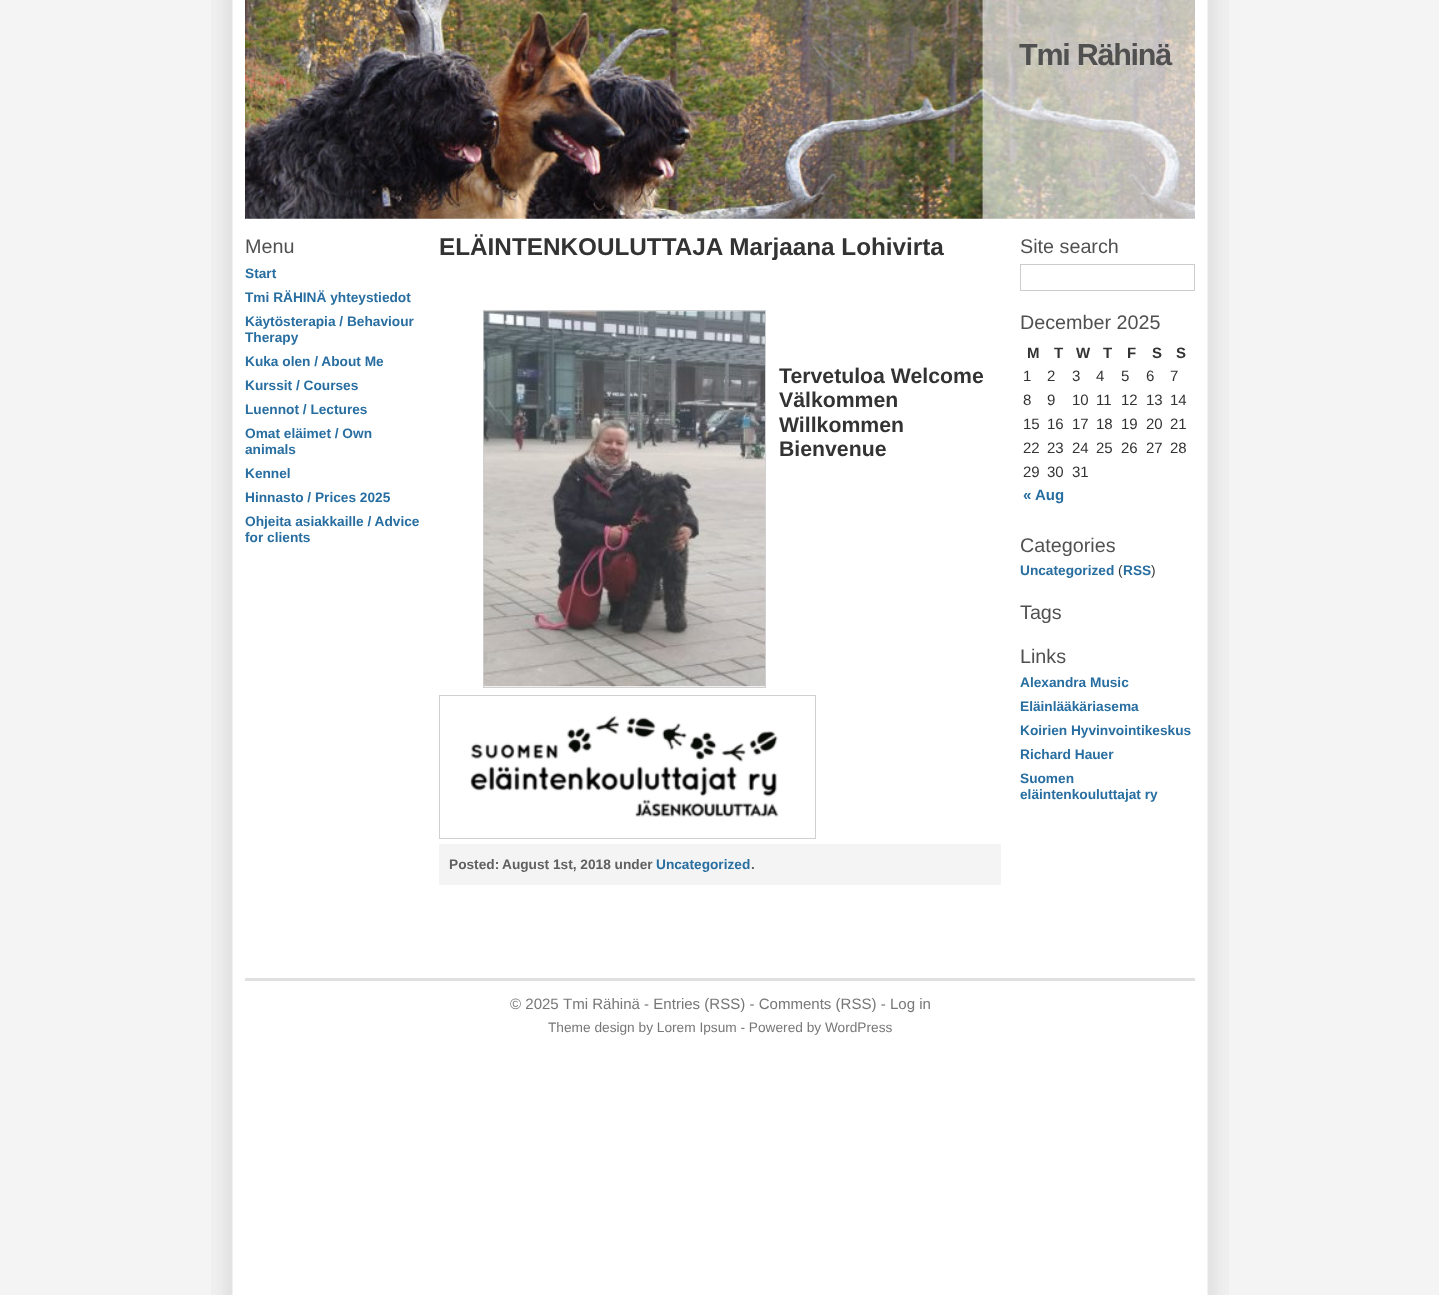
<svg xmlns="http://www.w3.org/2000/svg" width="1439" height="1295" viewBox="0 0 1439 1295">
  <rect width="100%" height="100%" fill="rgb(244,244,244)"/>
  <image x="211" y="0" width="1018" height="1295" href="pic1.png"/>
  <image x="245" y="0" width="950" height="219" href="pic2.png"/>
  <text x="1019" y="65" font-family="Liberation Sans" font-size="30.5" font-weight="bold" letter-spacing="-1.25" fill="rgb(80,80,80)">Tmi Rähinä</text>
  <text x="245" y="253" font-family="Liberation Sans" font-size="19.75" fill="rgb(80,80,80)">Menu</text>
  <g font-family="Liberation Sans" font-size="13.7" font-weight="bold" fill="rgb(40,110,160)">
    <text>
      <tspan x="245" y="278">Start</tspan>
      <tspan x="245" y="302">Tmi RÄHINÄ yhteystiedot</tspan>
      <tspan x="245" y="326">Käytösterapia / Behaviour</tspan>
      <tspan x="245" y="342">Therapy</tspan>
      <tspan x="245" y="366">Kuka olen / About Me</tspan>
      <tspan x="245" y="390">Kurssit / Courses</tspan>
      <tspan x="245" y="414">Luennot / Lectures</tspan>
      <tspan x="245" y="438">Omat eläimet / Own</tspan>
      <tspan x="245" y="454">animals</tspan>
      <tspan x="245" y="478">Kennel</tspan>
      <tspan x="245" y="502">Hinnasto / Prices 2025</tspan>
      <tspan x="245" y="526">Ohjeita asiakkaille / Advice</tspan>
      <tspan x="245" y="542">for clients</tspan>
    </text>
  </g>
  <text x="439" y="255" font-family="Liberation Sans" font-size="24.3" font-weight="bold" fill="rgb(51,51,51)">ELÄINTENKOULUTTAJA Marjaana Lohivirta</text>
  <rect x="483.5" y="310.5" width="282" height="377" fill="none" stroke="rgb(208,208,208)"/>
  <image x="483" y="311" width="282" height="376" href="pic3.png"/>
  <g font-family="Liberation Sans" font-size="21.25" font-weight="bold" fill="rgb(51,51,51)">
    <text>
      <tspan x="779" y="383">Tervetuloa Welcome</tspan>
      <tspan x="779" y="407">Välkommen</tspan>
      <tspan x="779" y="432">Willkommen</tspan>
      <tspan x="779" y="456">Bienvenue</tspan>
    </text>
  </g>
  <rect x="439.5" y="695.5" width="376" height="143" fill="none" stroke="rgb(208,208,208)"/>
  <image x="470" y="716" width="309" height="101" href="pic4.png"/>
  <rect x="439" y="844" width="562" height="41" fill="rgb(244,244,244)"/>
  <g font-family="Liberation Sans" font-size="13.7" font-weight="bold" fill="rgb(96,96,96)">
    <text x="449" y="869">Posted:</text>
    <text x="502" y="869">August 1st, 2018 under</text>
  </g>
  <text x="656" y="869" font-family="Liberation Sans" font-size="13.7" font-weight="bold" fill="rgb(40,110,160)">Uncategorized</text>
  <text x="751" y="869" font-family="Liberation Sans" font-size="13.7" font-weight="bold" fill="rgb(96,96,96)">.</text>
  <text x="1020" y="253" font-family="Liberation Sans" font-size="19.75" fill="rgb(80,80,80)">Site search</text>
  <rect x="1020.5" y="264.5" width="174" height="26" fill="none" stroke="rgb(204,204,204)"/>
  <text x="1020" y="329" font-family="Liberation Sans" font-size="19.75" fill="rgb(80,80,80)">December 2025</text>
  <g font-family="Liberation Sans" font-size="15" font-weight="bold" fill="rgb(51,51,51)">
    <text x="1027" y="358">M</text>
    <text x="1054" y="358">T</text>
    <text x="1076" y="358">W</text>
    <text x="1103" y="358">T</text>
    <text x="1127" y="358">F</text>
    <text x="1152" y="358">S</text>
    <text x="1176" y="358">S</text>
  </g>
  <g font-family="Liberation Sans" font-size="15" fill="rgb(51,51,51)">
    <text x="1023" y="381">1</text>
    <text x="1047" y="381">2</text>
    <text x="1072" y="381">3</text>
    <text x="1096" y="381">4</text>
    <text x="1121" y="381">5</text>
    <text x="1146" y="381">6</text>
    <text x="1170" y="381">7</text>
    <text x="1023" y="405">8</text>
    <text x="1047" y="405">9</text>
    <text x="1072" y="405">10</text>
    <text x="1096" y="405">11</text>
    <text x="1121" y="405">12</text>
    <text x="1146" y="405">13</text>
    <text x="1170" y="405">14</text>
    <text x="1023" y="429">15</text>
    <text x="1047" y="429">16</text>
    <text x="1072" y="429">17</text>
    <text x="1096" y="429">18</text>
    <text x="1121" y="429">19</text>
    <text x="1146" y="429">20</text>
    <text x="1170" y="429">21</text>
    <text x="1023" y="453">22</text>
    <text x="1047" y="453">23</text>
    <text x="1072" y="453">24</text>
    <text x="1096" y="453">25</text>
    <text x="1121" y="453">26</text>
    <text x="1146" y="453">27</text>
    <text x="1170" y="453">28</text>
    <text x="1023" y="477">29</text>
    <text x="1047" y="477">30</text>
    <text x="1072" y="477">31</text>
  </g>
  <text x="1023" y="500" font-family="Liberation Sans" font-size="15" font-weight="bold" fill="rgb(40,110,160)">« Aug</text>
  <text x="1020" y="552" font-family="Liberation Sans" font-size="19.75" fill="rgb(80,80,80)">Categories</text>
  <text x="1020" y="575" font-family="Liberation Sans" font-size="13.7" font-weight="bold" fill="rgb(40,110,160)">Uncategorized</text>
  <text x="1118" y="575" font-family="Liberation Sans" font-size="13.7" fill="rgb(51,51,51)">(</text>
  <text x="1123" y="575" font-family="Liberation Sans" font-size="13.7" font-weight="bold" fill="rgb(40,110,160)">RSS</text>
  <text x="1151" y="575" font-family="Liberation Sans" font-size="13.7" fill="rgb(51,51,51)">)</text>
  <g font-family="Liberation Sans" font-size="19.75" fill="rgb(80,80,80)">
    <text x="1020" y="619">Tags</text>
    <text x="1020" y="663">Links</text>
  </g>
  <g font-family="Liberation Sans" font-size="13.7" font-weight="bold" fill="rgb(40,110,160)">
    <text>
      <tspan x="1020" y="687">Alexandra Music</tspan>
      <tspan x="1020" y="711">Eläinlääkäriasema</tspan>
      <tspan x="1020" y="735">Koirien Hyvinvointikeskus</tspan>
      <tspan x="1020" y="759">Richard Hauer</tspan>
      <tspan x="1020" y="783">Suomen</tspan>
      <tspan x="1020" y="799">eläintenkouluttajat ry</tspan>
    </text>
  </g>
  <rect x="245" y="978" width="950" height="3" fill="rgb(224,224,224)"/>
  <g font-family="Liberation Sans" font-size="15.05" fill="rgb(119,119,119)">
    <text x="510" y="1009">© 2025</text>
    <text x="563" y="1009">Tmi Rähinä - Entries (RSS) - Comments (RSS) - Log in</text>
  </g>
  <text x="548" y="1032" font-family="Liberation Sans" font-size="13.7" fill="rgb(119,119,119)">Theme design by Lorem Ipsum - Powered by WordPress</text>
</svg>
